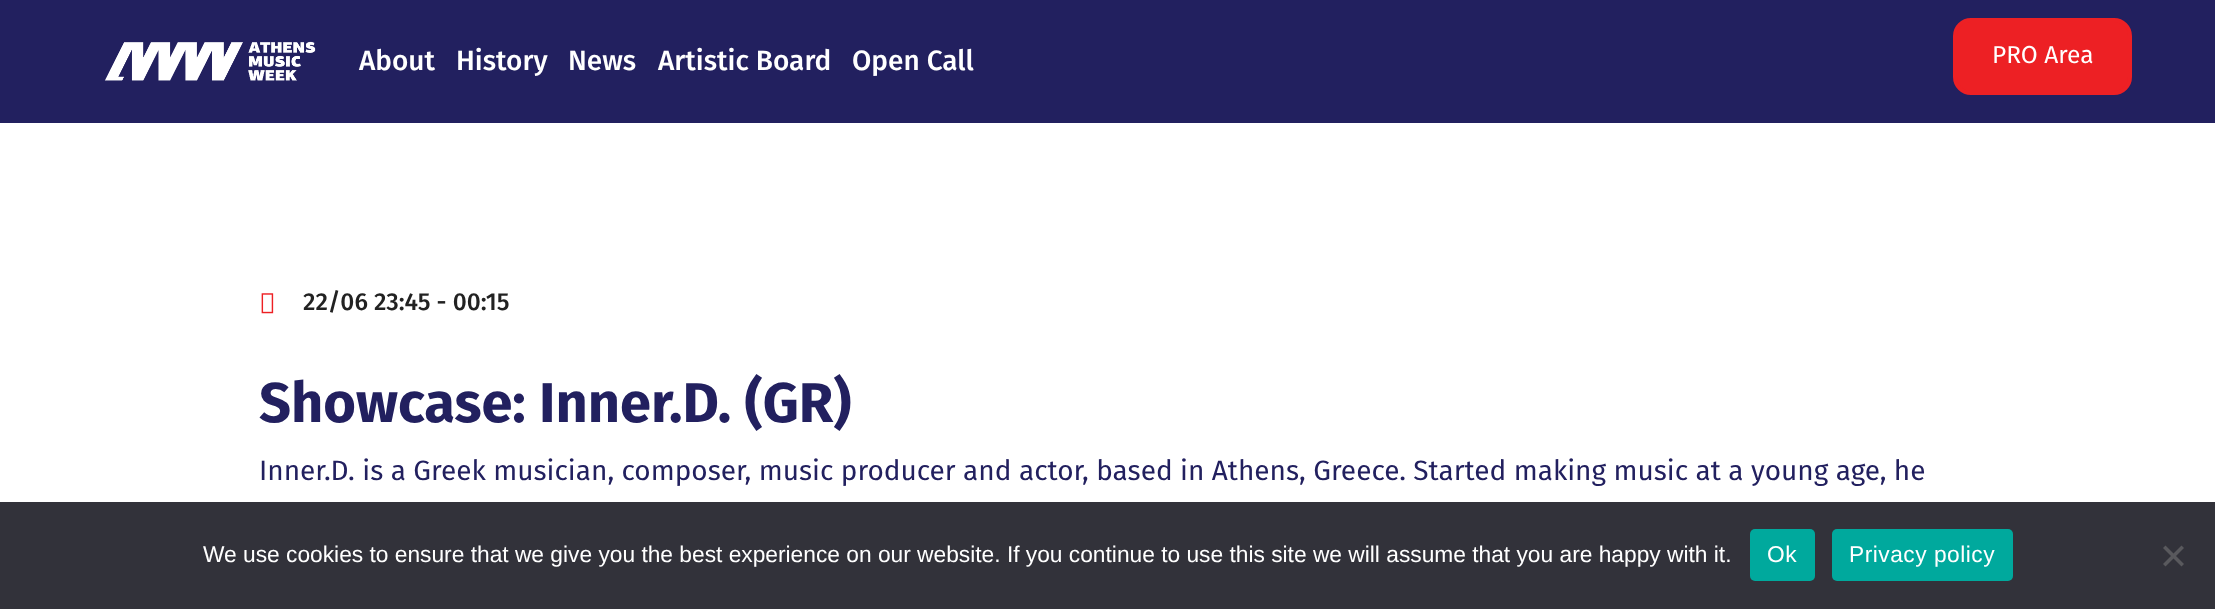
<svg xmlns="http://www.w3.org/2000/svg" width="2215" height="609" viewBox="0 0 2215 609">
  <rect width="100%" height="100%" fill="rgb(255,255,255)"/>
  <rect x="0" y="0" width="2215" height="123" fill="rgb(34,32,95)"/>
  <image x="104" y="41" width="212" height="40" href="pic1.png"/>
  <g font-family="Fira Sans" font-size="28" font-weight="500" fill="rgb(255,255,255)">
    <text x="359" y="70">About</text>
    <text x="456" y="70">History</text>
    <text x="568" y="70">News</text>
    <text x="658" y="70">Artistic Board</text>
    <text x="852" y="70">Open Call</text>
  </g>
  <rect x="1955" y="20" width="175" height="73" rx="16" fill="rgb(237,32,36)" stroke="rgb(237,32,36)" stroke-width="4"/>
  <text x="1992" y="63" font-family="Fira Sans" font-size="24.5" fill="rgb(255,255,255)">PRO Area</text>
  <image x="261" y="293" width="13" height="21" href="pic2.png"/>
  <text x="303" y="310" font-family="Fira Sans" font-size="24.5" font-weight="500" fill="rgb(34,34,34)">22/06 23:45 - 00:15</text>
  <text x="259" y="422" font-family="Fira Sans" font-size="56" font-weight="bold" fill="rgb(34,32,95)">Showcase: Inner.D. (GR)</text>
  <text x="259" y="480" font-family="Fira Sans" font-size="28" fill="rgb(34,32,95)">Inner.D. is a Greek musician, composer, music producer and actor, based in Athens, Greece. Started making music at a young age, he</text>
  <rect x="0" y="502" width="2215" height="107" fill="rgb(50,50,58)"/>
  <text x="203" y="562" font-family="Liberation Sans" font-size="22.75" fill="rgb(255,255,255)">We use cookies to ensure that we give you the best experience on our website. If you continue to use this site we will assume that you are happy with it.</text>
  <rect x="1750" y="529" width="65" height="52" rx="5" fill="rgb(0,169,157)"/>
  <text x="1767" y="562" font-family="Liberation Sans" font-size="22.75" letter-spacing="0.5" fill="rgb(255,255,255)">Ok</text>
  <rect x="1832" y="529" width="181" height="52" rx="5" fill="rgb(0,169,157)"/>
  <text x="1849" y="562" font-family="Liberation Sans" font-size="22.75" letter-spacing="0.5" fill="rgb(255,255,255)">Privacy policy</text>
  <path d="M2181.5 545.5L2184 548L2165.5 566.5L2163 564Z" fill="rgb(89,89,93)"/>
  <path d="M2163 548L2165.5 545.5L2184 564L2181.5 566.5Z" fill="rgb(89,89,93)"/>
</svg>
